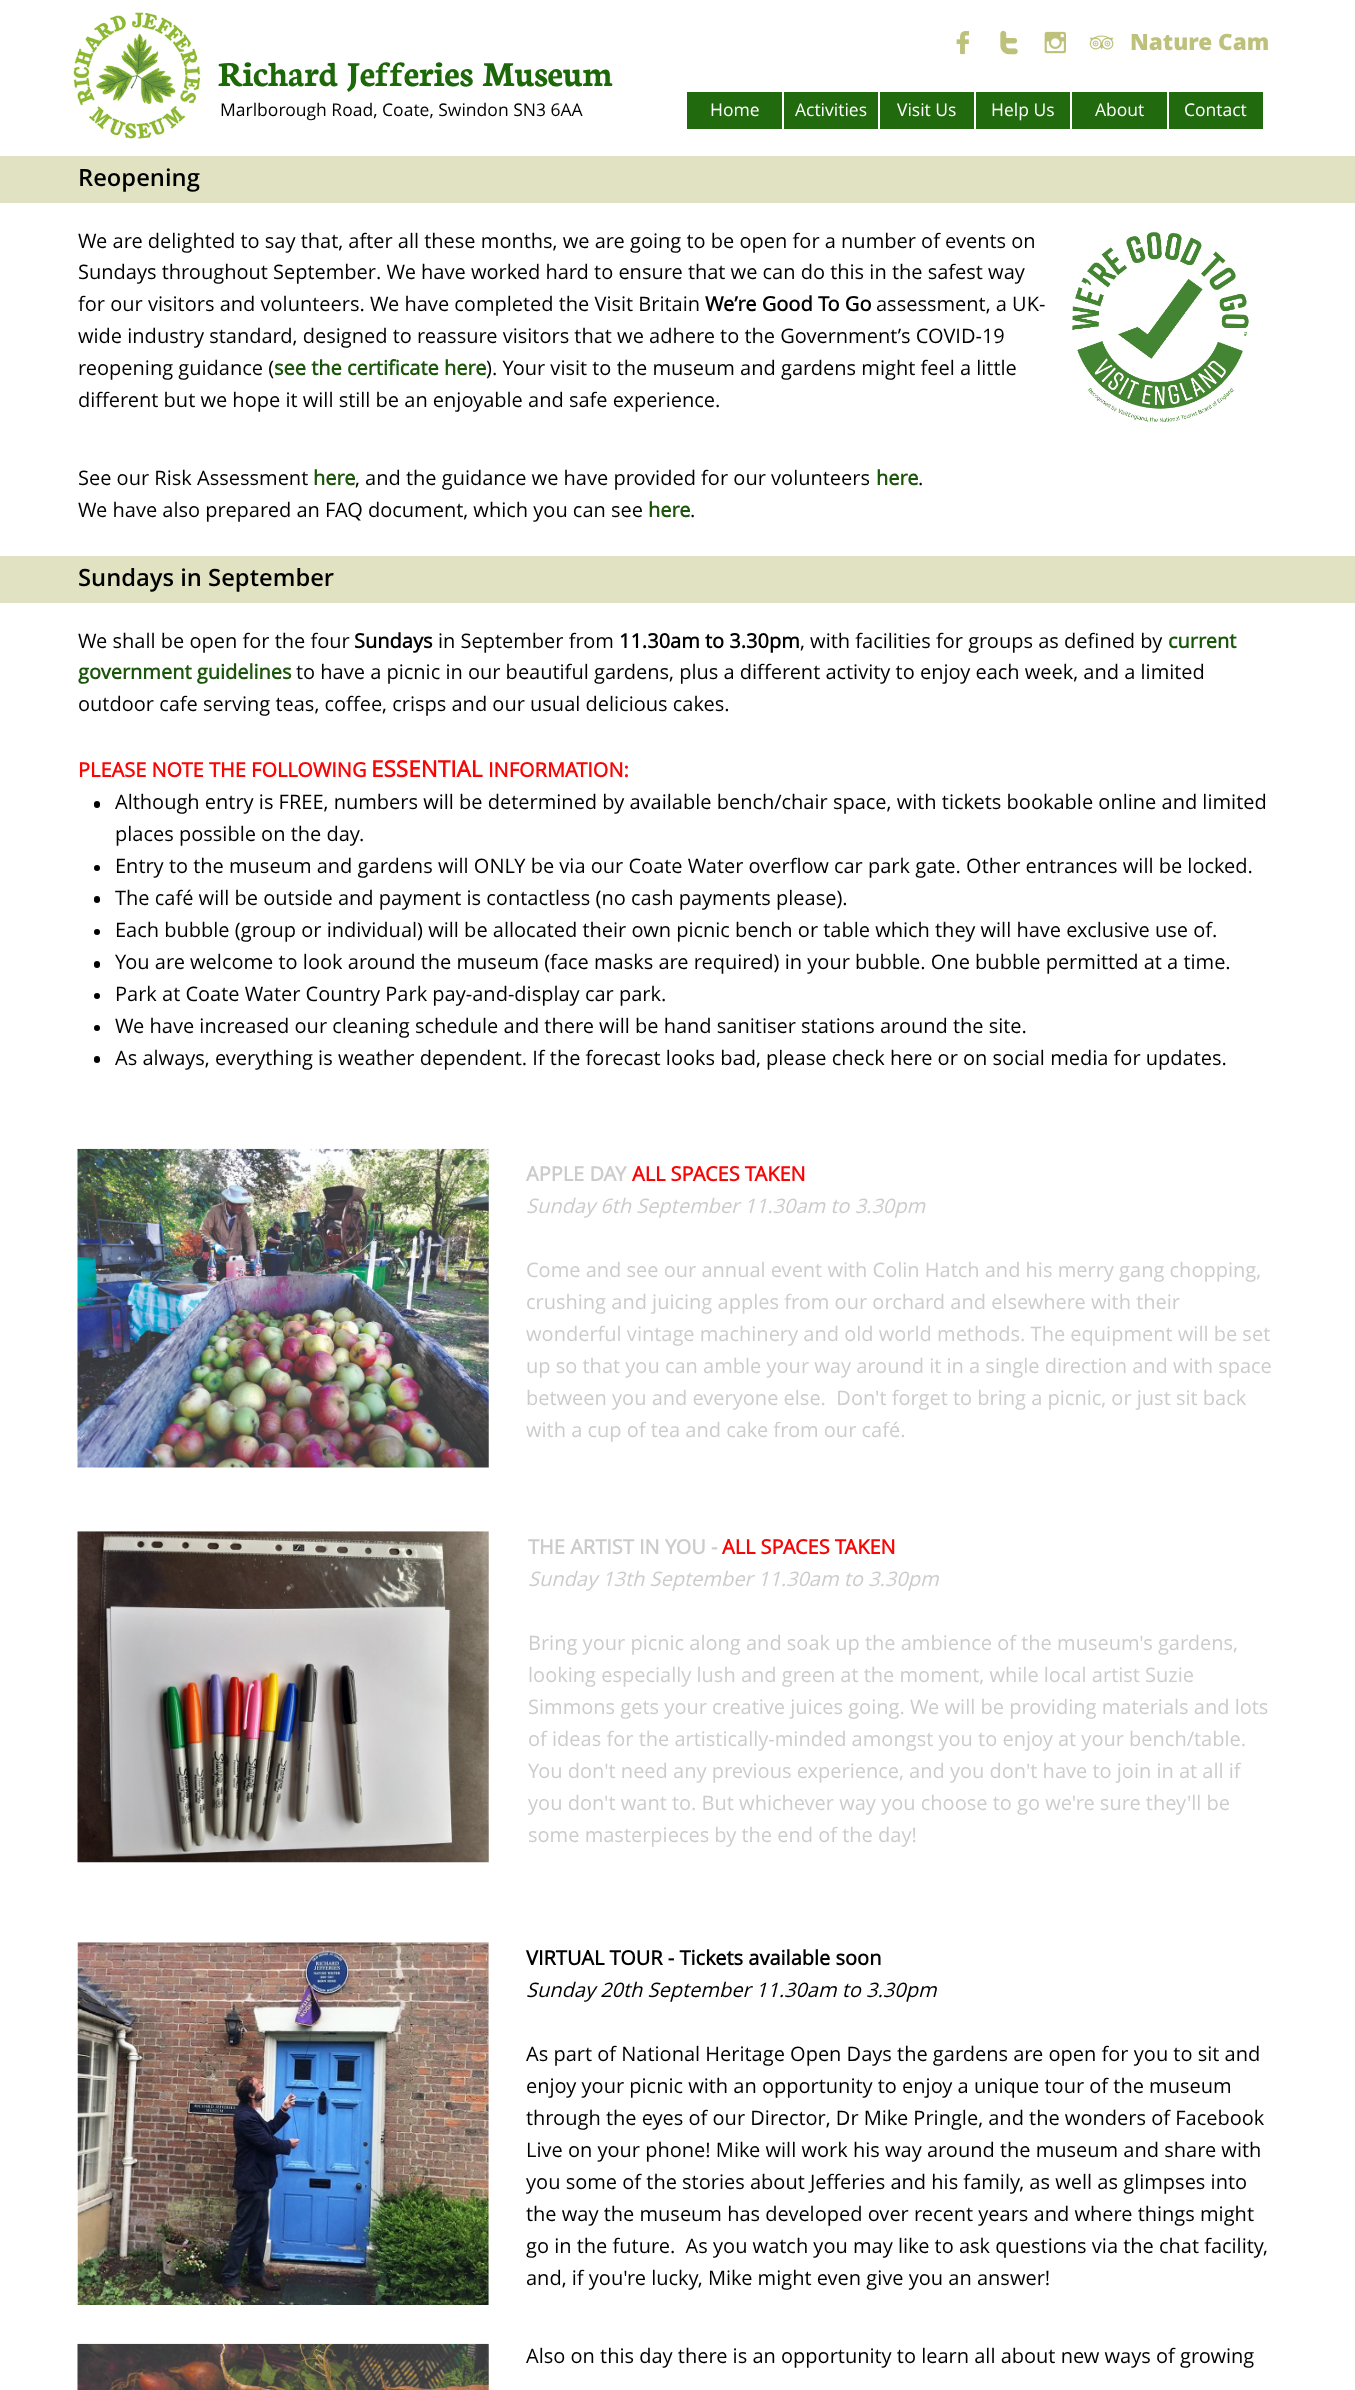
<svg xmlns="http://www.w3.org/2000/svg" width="1355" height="2390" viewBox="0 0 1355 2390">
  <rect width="100%" height="100%" fill="rgb(255,255,255)"/>
  <image x="73" y="12" width="127" height="127" href="pic1.png"/>
  <image x="956" y="31" width="13" height="24" href="pic2.png"/>
  <image x="1000" y="30" width="18" height="25" href="pic3.png"/>
  <image x="1044" y="31" width="22" height="23" href="pic4.png"/>
  <image x="1089" y="35" width="25" height="15" href="pic5.png"/>
  <text x="1130" y="50" font-family="Open Sans" font-size="22.5" font-weight="800" fill="rgb(189,193,123)">Nature Cam</text>
  <text x="218" y="86" font-family="Neuton" font-size="37.5" font-weight="bold" fill="rgb(29,104,9)">Richard Jefferies Museum</text>
  <text x="220" y="116" font-family="Open Sans" font-size="17.5" fill="rgb(0,0,0)">Marlborough Road, Coate, Swindon SN3 6AA</text>
  <rect x="687" y="92" width="576" height="37" fill="rgb(33,106,14)"/>
  <rect x="686.5" y="91.5" width="96" height="38" fill="none" stroke="rgb(255,255,255)"/>
  <text x="710" y="116" font-family="Open Sans" font-size="17.5" fill="rgb(255,255,255)">Home</text>
  <rect x="783.5" y="91.5" width="95" height="38" fill="none" stroke="rgb(255,255,255)"/>
  <text x="795" y="116" font-family="Open Sans" font-size="17.5" fill="rgb(255,255,255)">Activities</text>
  <rect x="879.5" y="91.5" width="95" height="38" fill="none" stroke="rgb(255,255,255)"/>
  <text x="897" y="116" font-family="Open Sans" font-size="17.5" fill="rgb(255,255,255)">Visit Us</text>
  <rect x="975.5" y="91.5" width="95" height="38" fill="none" stroke="rgb(255,255,255)"/>
  <text x="991" y="116" font-family="Open Sans" font-size="17.5" fill="rgb(255,255,255)">Help Us</text>
  <rect x="1071.5" y="91.5" width="96" height="38" fill="none" stroke="rgb(255,255,255)"/>
  <text x="1095" y="116" font-family="Open Sans" font-size="17.5" fill="rgb(255,255,255)">About</text>
  <rect x="1168.5" y="91.5" width="95" height="38" fill="none" stroke="rgb(255,255,255)"/>
  <text x="1184" y="116" font-family="Open Sans" font-size="17.5" fill="rgb(255,255,255)">Contact</text>
  <rect x="0" y="156" width="1355" height="47" fill="rgb(224,226,193)"/>
  <text x="78" y="186" font-family="Open Sans" font-size="23.75" font-weight="600" fill="rgb(0,0,0)">Reopening</text>
  <g font-family="Open Sans" font-size="20" fill="rgb(0,0,0)">
    <text>
      <tspan x="78" y="248">We are delighted to say that, after all these months, we are going to be open for a number of events on</tspan>
      <tspan x="78" y="279">Sundays throughout September. We have worked hard to ensure that we can do this in the safest way</tspan>
      <tspan x="78" y="311">for our visitors and volunteers. We have completed the Visit Britain</tspan>
    </text>
  </g>
  <text x="705" y="311" font-family="Open Sans" font-size="20" font-weight="bold" fill="rgb(0,0,0)">We’re Good To Go</text>
  <g font-family="Open Sans" font-size="20" fill="rgb(0,0,0)">
    <text x="876" y="311">assessment, a UK-</text>
    <text>
      <tspan x="78" y="343">wide industry standard, designed to reassure visitors that we adhere to the Government’s COVID-19</tspan>
      <tspan x="78" y="375">reopening guidance (</tspan>
    </text>
  </g>
  <text x="274" y="375" font-family="Open Sans" font-size="20" font-weight="bold" fill="rgb(26,85,10)">see the certificate here</text>
  <g font-family="Open Sans" font-size="20" fill="rgb(0,0,0)">
    <text x="486" y="375">). Your visit to the museum and gardens might feel a little</text>
    <text x="78" y="407">different but we hope it will still be an enjoyable and safe experience.</text>
    <text x="78" y="485">See our Risk Assessment</text>
  </g>
  <text x="313" y="485" font-family="Open Sans" font-size="20" font-weight="bold" fill="rgb(26,85,10)">here</text>
  <text x="355" y="485" font-family="Open Sans" font-size="20" fill="rgb(0,0,0)">, and the guidance we have provided for our volunteers</text>
  <text x="876" y="485" font-family="Open Sans" font-size="20" font-weight="bold" fill="rgb(26,85,10)">here</text>
  <g font-family="Open Sans" font-size="20" fill="rgb(0,0,0)">
    <text x="918" y="485">.</text>
    <text x="78" y="517">We have also prepared an FAQ document, which you can see</text>
  </g>
  <text x="648" y="517" font-family="Open Sans" font-size="20" font-weight="bold" fill="rgb(26,85,10)">here</text>
  <text x="690" y="517" font-family="Open Sans" font-size="20" fill="rgb(0,0,0)">.</text>
  <image x="1072" y="232" width="177" height="190" href="pic6.png"/>
  <rect x="0" y="556" width="1355" height="47" fill="rgb(224,226,193)"/>
  <text x="78" y="586" font-family="Open Sans" font-size="23.75" font-weight="600" fill="rgb(0,0,0)">Sundays in September</text>
  <text x="78" y="648" font-family="Open Sans" font-size="20" fill="rgb(0,0,0)">We shall be open for the four</text>
  <text x="354" y="648" font-family="Open Sans" font-size="20" font-weight="bold" fill="rgb(0,0,0)">Sundays</text>
  <text x="438" y="648" font-family="Open Sans" font-size="20" fill="rgb(0,0,0)">in September from</text>
  <text x="619" y="648" font-family="Open Sans" font-size="20" font-weight="bold" fill="rgb(0,0,0)">11.30am to 3.30pm</text>
  <text x="800" y="648" font-family="Open Sans" font-size="20" fill="rgb(0,0,0)">, with facilities for groups as defined by</text>
  <g font-family="Open Sans" font-size="20" font-weight="bold" fill="rgb(26,85,10)">
    <text x="1168" y="648">current</text>
    <text x="78" y="679">government guidelines</text>
  </g>
  <g font-family="Open Sans" font-size="20" fill="rgb(0,0,0)">
    <text x="296" y="679">to have a picnic in our beautiful gardens, plus a different activity to enjoy each week, and a limited</text>
    <text x="78" y="711">outdoor cafe serving teas, coffee, crisps and our usual delicious cakes.</text>
  </g>
  <text x="78" y="777" font-family="Open Sans" font-size="20" font-weight="bold" fill="rgb(248,6,6)">PLEASE NOTE THE FOLLOWING</text>
  <text x="371" y="777" font-family="Open Sans" font-size="22.5" font-weight="bold" fill="rgb(248,6,6)">ESSENTIAL</text>
  <text x="488" y="777" font-family="Open Sans" font-size="20" font-weight="bold" fill="rgb(248,6,6)">INFORMATION:</text>
  <rect x="94" y="801" width="6" height="7" rx="3" fill="rgb(0,0,0)"/>
  <g font-family="Open Sans" font-size="20" fill="rgb(0,0,0)">
    <text>
      <tspan x="115" y="809">Although entry is FREE, numbers will be determined by available bench/chair space, with tickets bookable online and limited</tspan>
      <tspan x="115" y="841">places possible on the day.</tspan>
    </text>
  </g>
  <circle cx="97" cy="868" r="3" fill="rgb(0,0,0)"/>
  <text x="115" y="873" font-family="Open Sans" font-size="20" fill="rgb(0,0,0)">Entry to the museum and gardens will ONLY be via our Coate Water overflow car park gate. Other entrances will be locked.</text>
  <rect x="94" y="896" width="6" height="7" rx="3" fill="rgb(0,0,0)"/>
  <text x="115" y="905" font-family="Open Sans" font-size="20" fill="rgb(0,0,0)">The café will be outside and payment is contactless (no cash payments please).</text>
  <circle cx="97" cy="932" r="3" fill="rgb(0,0,0)"/>
  <text x="115" y="937" font-family="Open Sans" font-size="20" fill="rgb(0,0,0)">Each bubble (group or individual) will be allocated their own picnic bench or table which they will have exclusive use of.</text>
  <rect x="94" y="961" width="6" height="7" rx="3" fill="rgb(0,0,0)"/>
  <text x="115" y="969" font-family="Open Sans" font-size="20" fill="rgb(0,0,0)">You are welcome to look around the museum (face masks are required) in your bubble. One bubble permitted at a time.</text>
  <circle cx="97" cy="996" r="3" fill="rgb(0,0,0)"/>
  <text x="115" y="1001" font-family="Open Sans" font-size="20" fill="rgb(0,0,0)">Park at Coate Water Country Park pay-and-display car park.</text>
  <circle cx="97" cy="1028" r="3" fill="rgb(0,0,0)"/>
  <text x="115" y="1033" font-family="Open Sans" font-size="20" fill="rgb(0,0,0)">We have increased our cleaning schedule and there will be hand sanitiser stations around the site.</text>
  <rect x="94" y="1056" width="6" height="7" rx="3" fill="rgb(0,0,0)"/>
  <text x="115" y="1065" font-family="Open Sans" font-size="20" fill="rgb(0,0,0)">As always, everything is weather dependent. If the forecast looks bad, please check here or on social media for updates.</text>
  <image x="77" y="1148" width="412" height="320" href="pic7.png"/>
  <text x="526" y="1181" font-family="Open Sans" font-size="20" font-weight="bold" fill="rgb(204,204,204)">APPLE DAY</text>
  <text x="632" y="1181" font-family="Open Sans" font-size="20" font-weight="bold" fill="rgb(248,6,6)">ALL SPACES TAKEN</text>
  <text x="526" y="1213" font-family="Open Sans" font-size="20" font-style="italic" fill="rgb(204,204,204)">Sunday 6th September 11.30am to 3.30pm</text>
  <g font-family="Open Sans" font-size="20" fill="rgb(204,204,204)">
    <text xml:space="preserve"><tspan x="526" y="1277">Come and see our annual event with Colin Hatch and his merry gang chopping,</tspan><tspan x="526" y="1309">crushing and juicing apples from our orchard and elsewhere with their</tspan><tspan x="526" y="1341">wonderful vintage machinery and old world methods. The equipment will be set</tspan><tspan x="526" y="1373">up so that you can amble your way around it in a single direction and with space</tspan><tspan x="526" y="1405">between you and everyone else.  Don't forget to bring a picnic, or just sit back</tspan><tspan x="526" y="1437">with a cup of tea and cake from our café.</tspan></text>
  </g>
  <image x="77" y="1531" width="412" height="332" href="pic8.png"/>
  <text x="528" y="1554" font-family="Open Sans" font-size="20" font-weight="bold" fill="rgb(204,204,204)">THE ARTIST IN YOU -</text>
  <text x="722" y="1554" font-family="Open Sans" font-size="20" font-weight="bold" fill="rgb(248,6,6)">ALL SPACES TAKEN</text>
  <text x="528" y="1586" font-family="Open Sans" font-size="20" font-style="italic" fill="rgb(204,204,204)">Sunday 13th September 11.30am to 3.30pm</text>
  <g font-family="Open Sans" font-size="20" fill="rgb(204,204,204)">
    <text>
      <tspan x="528" y="1650">Bring your picnic along and soak up the ambience of the museum's gardens,</tspan>
      <tspan x="528" y="1682">looking especially lush and green at the moment, while local artist Suzie</tspan>
      <tspan x="528" y="1714">Simmons gets your creative juices going. We will be providing materials and lots</tspan>
      <tspan x="528" y="1746">of ideas for the artistically-minded amongst you to enjoy at your bench/table.</tspan>
      <tspan x="528" y="1778">You don't need any previous experience, and you don't have to join in at all if</tspan>
      <tspan x="528" y="1810">you don't want to. But whichever way you choose to go we're sure they'll be</tspan>
      <tspan x="528" y="1842">some masterpieces by the end of the day!</tspan>
    </text>
  </g>
  <image x="77" y="1942" width="412" height="363" href="pic9.png"/>
  <text x="526" y="1965" font-family="Open Sans" font-size="20" font-weight="bold" fill="rgb(0,0,0)">VIRTUAL TOUR - Tickets available soon</text>
  <text x="526" y="1997" font-family="Open Sans" font-size="20" font-style="italic" fill="rgb(0,0,0)">Sunday 20th September 11.30am to 3.30pm</text>
  <g font-family="Open Sans" font-size="20" fill="rgb(0,0,0)">
    <text xml:space="preserve"><tspan x="526" y="2061">As part of National Heritage Open Days the gardens are open for you to sit and</tspan><tspan x="526" y="2093">enjoy your picnic with an opportunity to enjoy a unique tour of the museum</tspan><tspan x="526" y="2125">through the eyes of our Director, Dr Mike Pringle, and the wonders of Facebook</tspan><tspan x="526" y="2157">Live on your phone! Mike will work his way around the museum and share with</tspan><tspan x="526" y="2189">you some of the stories about Jefferies and his family, as well as glimpses into</tspan><tspan x="526" y="2221">the way the museum has developed over recent years and where things might</tspan><tspan x="526" y="2253">go in the future.  As you watch you may like to ask questions via the chat facility,</tspan><tspan x="526" y="2285">and, if you're lucky, Mike might even give you an answer!</tspan></text>
    <text x="526" y="2363">Also on this day there is an opportunity to learn all about new ways of growing</text>
  </g>
  <image x="77" y="2343" width="412" height="47" href="pic10.png"/>
</svg>
